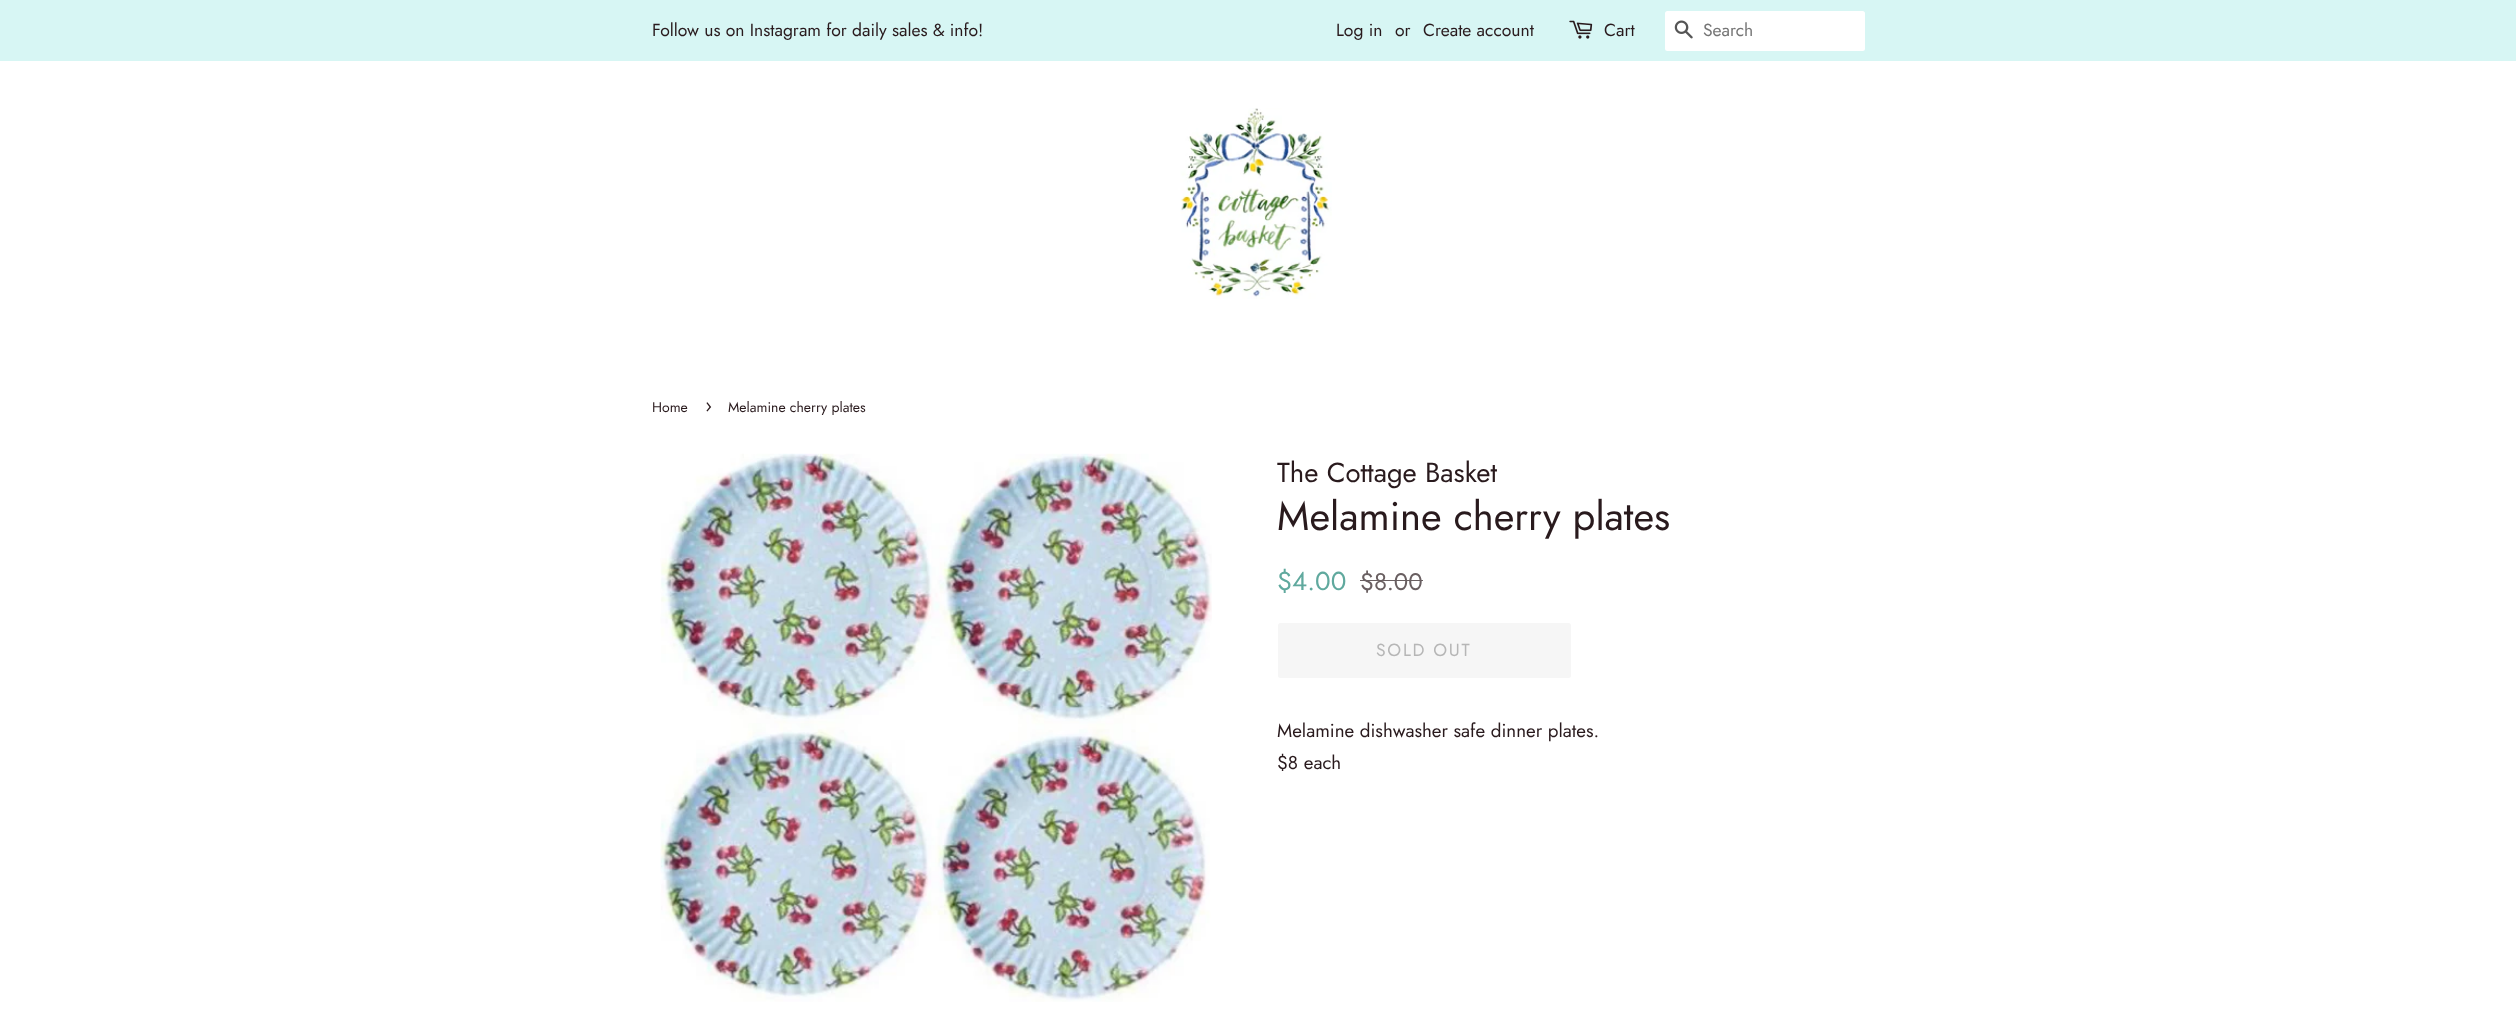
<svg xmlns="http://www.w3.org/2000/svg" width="2516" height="1021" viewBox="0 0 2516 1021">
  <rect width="100%" height="100%" fill="rgb(255,255,255)"/>
  <rect x="0" y="0" width="2516" height="61" fill="rgb(215,246,244)"/>
  <g font-family="Jost" font-size="17.5" fill="rgb(41,26,29)">
    <text x="652" y="36">Follow us on Instagram for daily sales &amp; info!</text>
    <text x="1336" y="36">Log in</text>
    <text x="1395" y="36">or</text>
    <text x="1423" y="36">Create account</text>
  </g>
  <image x="1569" y="20" width="24" height="19" href="pic1.png"/>
  <text x="1604" y="36" font-family="Jost" font-size="17.5" fill="rgb(41,26,29)">Cart</text>
  <rect x="1665" y="11" width="200" height="40" rx="2.5" fill="rgb(255,255,255)"/>
  <image x="1674" y="20" width="19" height="19" href="pic2.png"/>
  <text x="1703" y="36" font-family="Jost" font-size="17.5" fill="rgb(117,117,117)">Search</text>
  <image x="1180" y="108" width="152" height="191" href="pic3.png"/>
  <text x="652" y="412" font-family="Jost" font-size="14" fill="rgb(41,26,29)">Home</text>
  <text x="705" y="412" font-family="Jost" font-size="20" fill="rgb(41,26,29)">›</text>
  <text x="728" y="412" font-family="Jost" font-size="14" fill="rgb(41,26,29)">Melamine cherry plates</text>
  <image x="660" y="453" width="552" height="549" href="pic4.png"/>
  <text x="1277" y="482" font-family="Jost" font-size="27.5" fill="rgb(41,26,29)">The Cottage Basket</text>
  <text x="1277" y="530" font-family="Jost" font-size="40" fill="rgb(41,26,29)">Melamine cherry plates</text>
  <text x="1277" y="590" font-family="Jost" font-size="26" fill="rgb(96,169,158)">$4.00</text>
  <text x="1360" y="590" font-family="Jost" font-size="24" fill="rgb(105,95,97)">$8.00</text>
  <rect x="1360" y="580" width="63" height="1" fill="rgb(105,95,97)"/>
  <rect x="1278" y="623" width="293" height="55" rx="2.5" fill="rgb(246,246,246)"/>
  <text x="1376" y="656" font-family="Jost" font-size="17.5" letter-spacing="1.75" fill="rgb(182,182,182)">SOLD OUT</text>
  <g font-family="Jost" font-size="18.75" fill="rgb(41,26,29)">
    <text>
      <tspan x="1277" y="737">Melamine dishwasher safe dinner plates.</tspan>
      <tspan x="1277" y="769">$8 each</tspan>
    </text>
  </g>
</svg>
